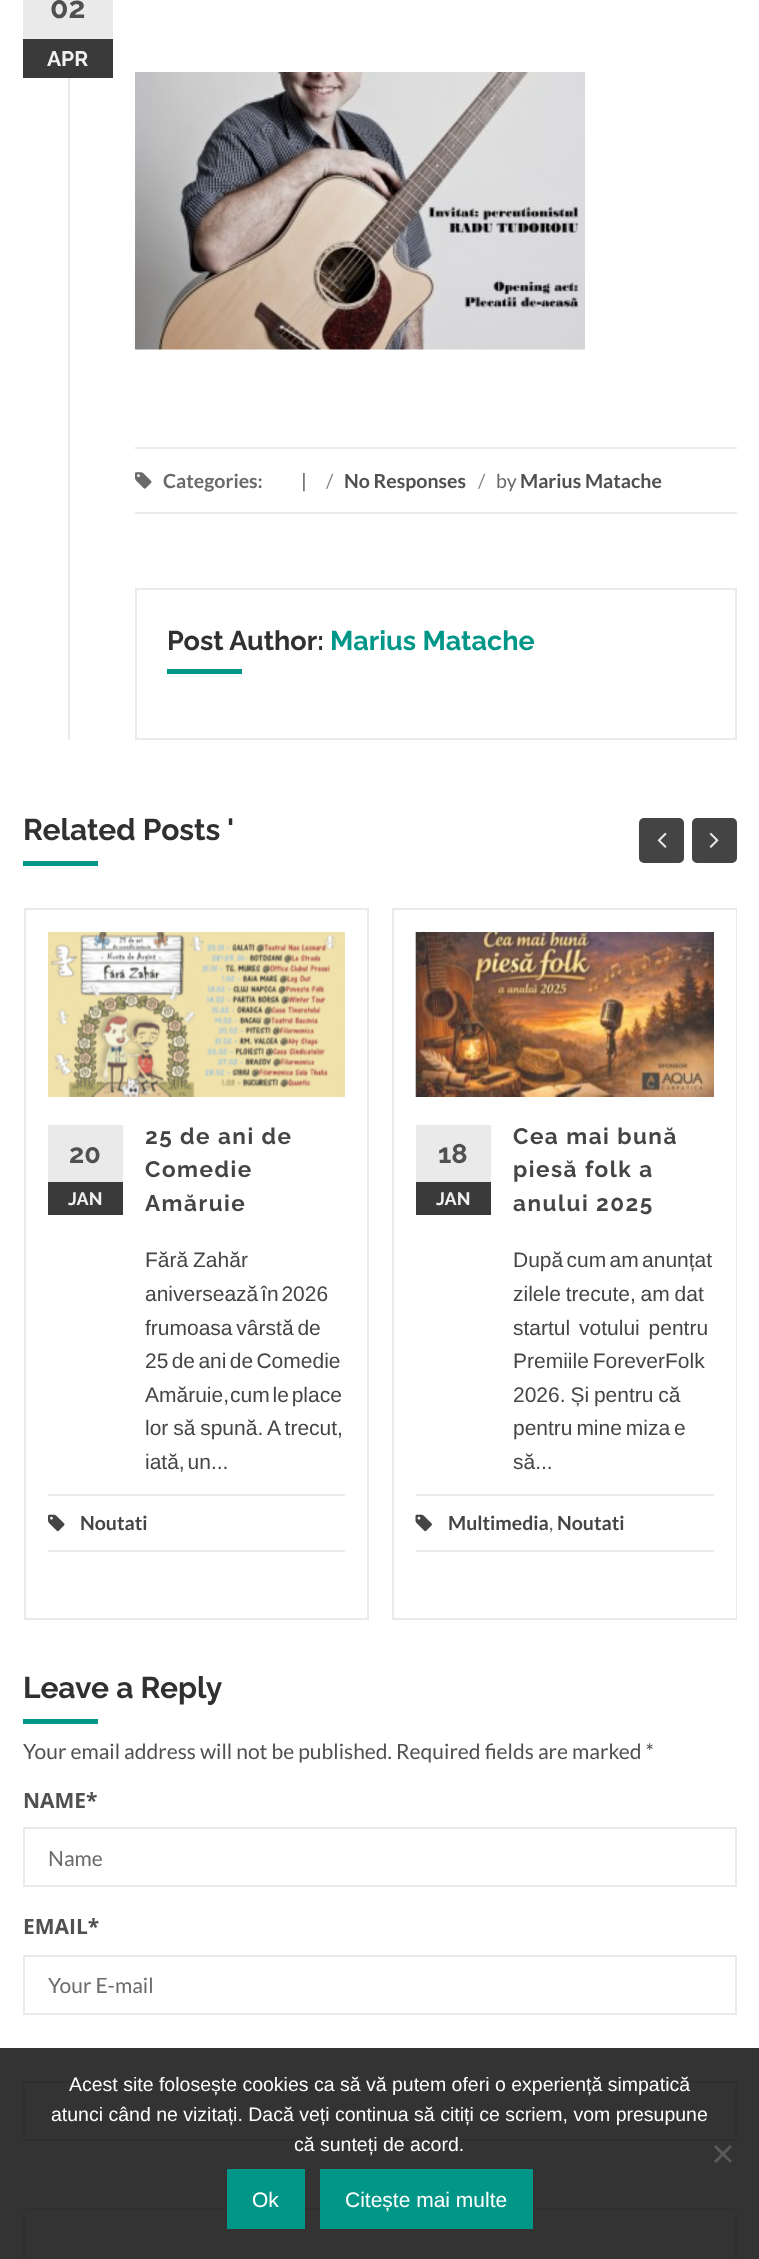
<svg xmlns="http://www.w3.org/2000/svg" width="759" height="2259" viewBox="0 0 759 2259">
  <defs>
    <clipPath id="clip1"><rect x="23" y="908" width="714" height="712"/></clipPath>
  </defs>
  <rect width="100%" height="100%" fill="rgb(255,255,255)"/>
  <rect x="23" y="0" width="90" height="39" fill="rgb(234,234,234)"/>
  <text x="50" y="18" font-family="Raleway" font-size="30" font-weight="bold" fill="rgb(80,80,80)">02</text>
  <rect x="23" y="39" width="90" height="39" fill="rgb(58,58,58)"/>
  <text x="47" y="66" font-family="Raleway" font-size="21" font-weight="bold" fill="rgb(241,241,241)">APR</text>
  <rect x="68" y="78" width="2" height="662" fill="rgb(234,234,234)"/>
  <image x="135" y="72" width="450" height="278" href="pic1.png"/>
  <rect x="135" y="447" width="602" height="2" fill="rgb(234,234,234)"/>
  <rect x="135" y="512" width="602" height="2" fill="rgb(234,234,234)"/>
  <image x="135" y="472" width="17" height="17" href="pic2.png"/>
  <text x="163" y="488" font-family="Lato" font-size="19.5" font-weight="bold" fill="rgb(106,106,106)">Categories:</text>
  <text x="301" y="488" font-family="Lato" font-size="19.5" fill="rgb(80,80,80)">|</text>
  <text x="326" y="488" font-family="Lato" font-size="19.5" fill="rgb(136,136,136)">/</text>
  <text x="344" y="488" font-family="Lato" font-size="19.5" font-weight="bold" fill="rgb(80,80,80)">No Responses</text>
  <text x="478" y="488" font-family="Lato" font-size="19.5" fill="rgb(136,136,136)">/</text>
  <text x="496" y="488" font-family="Lato" font-size="19.5" fill="rgb(106,106,106)">by</text>
  <text x="520" y="488" font-family="Lato" font-size="19.5" font-weight="bold" fill="rgb(80,80,80)">Marius Matache</text>
  <rect x="136" y="589" width="600" height="150" fill="none" stroke="rgb(234,234,234)" stroke-width="2"/>
  <text x="167" y="650" font-family="Raleway" font-size="27" font-weight="bold" fill="rgb(48,48,48)">Post Author:</text>
  <text x="330" y="650" font-family="Raleway" font-size="27" font-weight="bold" fill="rgb(0,150,136)">Marius Matache</text>
  <rect x="167" y="669" width="75" height="5" fill="rgb(0,150,136)"/>
  <g font-family="Raleway" font-size="30" font-weight="bold" fill="rgb(48,48,48)">
    <text x="23" y="840">Related Posts</text>
    <text x="227" y="840">'</text>
  </g>
  <rect x="23" y="861" width="75" height="5" fill="rgb(0,150,136)"/>
  <rect x="639" y="818" width="45" height="45" rx="5" fill="rgb(68,68,68)"/>
  <image x="657" y="832" width="10" height="16" href="pic3.png"/>
  <rect x="692" y="818" width="45" height="45" rx="5" fill="rgb(68,68,68)"/>
  <image x="709" y="832" width="10" height="16" href="pic4.png"/>
  <rect x="25" y="909" width="343" height="710" fill="none" stroke="rgb(234,234,234)" stroke-width="2"/>
  <image x="48" y="932" width="297" height="165" href="pic5.png"/>
  <rect x="48" y="1125" width="75" height="57" fill="rgb(234,234,234)"/>
  <text x="69" y="1163" font-family="Raleway" font-size="27" font-weight="bold" fill="rgb(80,80,80)">20</text>
  <rect x="48" y="1182" width="75" height="33" fill="rgb(58,58,58)"/>
  <text x="68" y="1205" font-family="Raleway" font-size="18" font-weight="bold" fill="rgb(241,241,241)">JAN</text>
  <g font-family="Raleway" font-size="22.5" font-weight="bold" letter-spacing="1.5" fill="rgb(69,69,69)">
    <text>
      <tspan x="145" y="1144">25 de ani de</tspan>
      <tspan x="145" y="1177">Comedie</tspan>
      <tspan x="145" y="1211">Amăruie</tspan>
    </text>
  </g>
  <g font-family="Liberation Sans" font-size="21" fill="rgb(69,69,69)">
    <text>
      <tspan x="145" y="1267" word-spacing="-1">Fără Zahăr</tspan>
      <tspan x="145" y="1301" word-spacing="-3">aniversează în 2026</tspan>
      <tspan x="145" y="1335" word-spacing="-2">frumoasa vârstă de</tspan>
      <tspan x="145" y="1368" word-spacing="-2.5">25 de ani de Comedie</tspan>
      <tspan x="145" y="1402">Amăruie,</tspan>
    </text>
    <text x="230" y="1402" word-spacing="-3">cum le place</text>
    <text>
      <tspan x="145" y="1435" word-spacing="-1">lor să spună. A trecut,</tspan>
      <tspan x="145" y="1469" word-spacing="-3">iată, un...</tspan>
    </text>
  </g>
  <rect x="48" y="1494" width="297" height="2" fill="rgb(234,234,234)"/>
  <rect x="48" y="1550" width="297" height="2" fill="rgb(234,234,234)"/>
  <image x="48" y="1514" width="17" height="18" href="pic6.png"/>
  <text x="80" y="1530" font-family="Lato" font-size="19.5" font-weight="bold" fill="rgb(69,69,69)">Noutati</text>
  <g clip-path="url(#clip1)">
    <rect x="393" y="909" width="344" height="710" fill="none" stroke="rgb(234,234,234)" stroke-width="2"/>
  </g>
  <image x="415" y="932" width="299" height="165" href="pic7.png"/>
  <rect x="416" y="1125" width="75" height="57" fill="rgb(234,234,234)"/>
  <text x="438" y="1163" font-family="Raleway" font-size="27" font-weight="bold" fill="rgb(80,80,80)">18</text>
  <rect x="416" y="1182" width="75" height="33" fill="rgb(58,58,58)"/>
  <text x="436" y="1205" font-family="Raleway" font-size="18" font-weight="bold" fill="rgb(241,241,241)">JAN</text>
  <g font-family="Raleway" font-size="22.5" font-weight="bold" letter-spacing="1.5" fill="rgb(69,69,69)">
    <text>
      <tspan x="513" y="1144">Cea mai bună</tspan>
      <tspan x="513" y="1177">piesă folk a</tspan>
      <tspan x="513" y="1211">anului 2025</tspan>
    </text>
  </g>
  <g font-family="Liberation Sans" font-size="21" fill="rgb(69,69,69)">
    <text>
      <tspan x="513" y="1267" word-spacing="-2.5">După cum am anunțat</tspan>
      <tspan x="513" y="1301" word-spacing="-1">zilele trecute, am dat</tspan>
      <tspan x="513" y="1335" word-spacing="3">startul votului pentru</tspan>
      <tspan x="513" y="1368" word-spacing="-2">Premiile ForeverFolk</tspan>
      <tspan x="513" y="1402" word-spacing="-1">2026. Și pentru că</tspan>
      <tspan x="513" y="1435" word-spacing="-2">pentru mine miza e</tspan>
      <tspan x="513" y="1469">să...</tspan>
    </text>
  </g>
  <rect x="416" y="1494" width="298" height="2" fill="rgb(234,234,234)"/>
  <rect x="416" y="1550" width="298" height="2" fill="rgb(234,234,234)"/>
  <image x="415" y="1514" width="17" height="18" href="pic8.png"/>
  <text x="448" y="1530" font-family="Lato" font-size="19.5" font-weight="bold" fill="rgb(69,69,69)">Multimedia</text>
  <text x="549" y="1530" font-family="Lato" font-size="19.5" fill="rgb(106,106,106)">,</text>
  <text x="557" y="1530" font-family="Lato" font-size="19.5" font-weight="bold" fill="rgb(69,69,69)">Noutati</text>
  <text x="23" y="1698" font-family="Raleway" font-size="30" font-weight="bold" fill="rgb(48,48,48)">Leave a Reply</text>
  <rect x="23" y="1719" width="75" height="5" fill="rgb(0,150,136)"/>
  <text x="23" y="1759" font-family="Lato" font-size="21" fill="rgb(80,80,80)">Your email address will not be published. Required fields are marked *</text>
  <text x="23" y="1808" font-family="Open Sans" font-size="21" font-weight="bold" fill="rgb(80,80,80)">NAME*</text>
  <rect x="24" y="1828" width="712" height="58" fill="none" stroke="rgb(234,234,234)" stroke-width="2"/>
  <text x="48" y="1866" font-family="Lato" font-size="21" fill="rgb(106,106,106)">Name</text>
  <text x="23" y="1934" font-family="Open Sans" font-size="21" font-weight="bold" fill="rgb(80,80,80)">EMAIL*</text>
  <rect x="24" y="1956" width="712" height="58" fill="none" stroke="rgb(234,234,234)" stroke-width="2"/>
  <text x="48" y="1993" font-family="Lato" font-size="21" fill="rgb(106,106,106)">Your E-mail</text>
  <rect x="24" y="2082" width="712" height="58" fill="none" stroke="rgb(234,234,234)" stroke-width="2"/>
  <rect x="24" y="2209" width="712" height="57" rx="5" fill="none" stroke="rgb(234,234,234)" stroke-width="2"/>
  <rect x="0" y="2048" width="759" height="211" fill="rgba(0,0,0,0.8)"/>
  <g font-family="Liberation Sans" font-size="19.5" fill="rgb(255,255,255)">
    <text x="69" y="2091">Acest site folosește cookies ca să vă putem oferi o experiență simpatică</text>
    <text x="51" y="2121">atunci când ne vizitați. Dacă veți continua să citiți ce scriem, vom presupune</text>
    <text x="294" y="2151">că sunteți de acord.</text>
  </g>
  <path d="M730 2145L732 2147L716 2163L714 2161Z" fill="rgb(90,90,90)"/>
  <path d="M714 2147L716 2145L732 2161L730 2163Z" fill="rgb(90,90,90)"/>
  <rect x="227" y="2169" width="78" height="60" fill="rgb(0,150,136)"/>
  <text x="252" y="2207" font-family="Liberation Sans" font-size="21" fill="rgb(255,255,255)">Ok</text>
  <rect x="320" y="2169" width="213" height="60" fill="rgb(0,150,136)"/>
  <text x="345" y="2207" font-family="Liberation Sans" font-size="21" fill="rgb(255,255,255)">Citește mai multe</text>
</svg>
